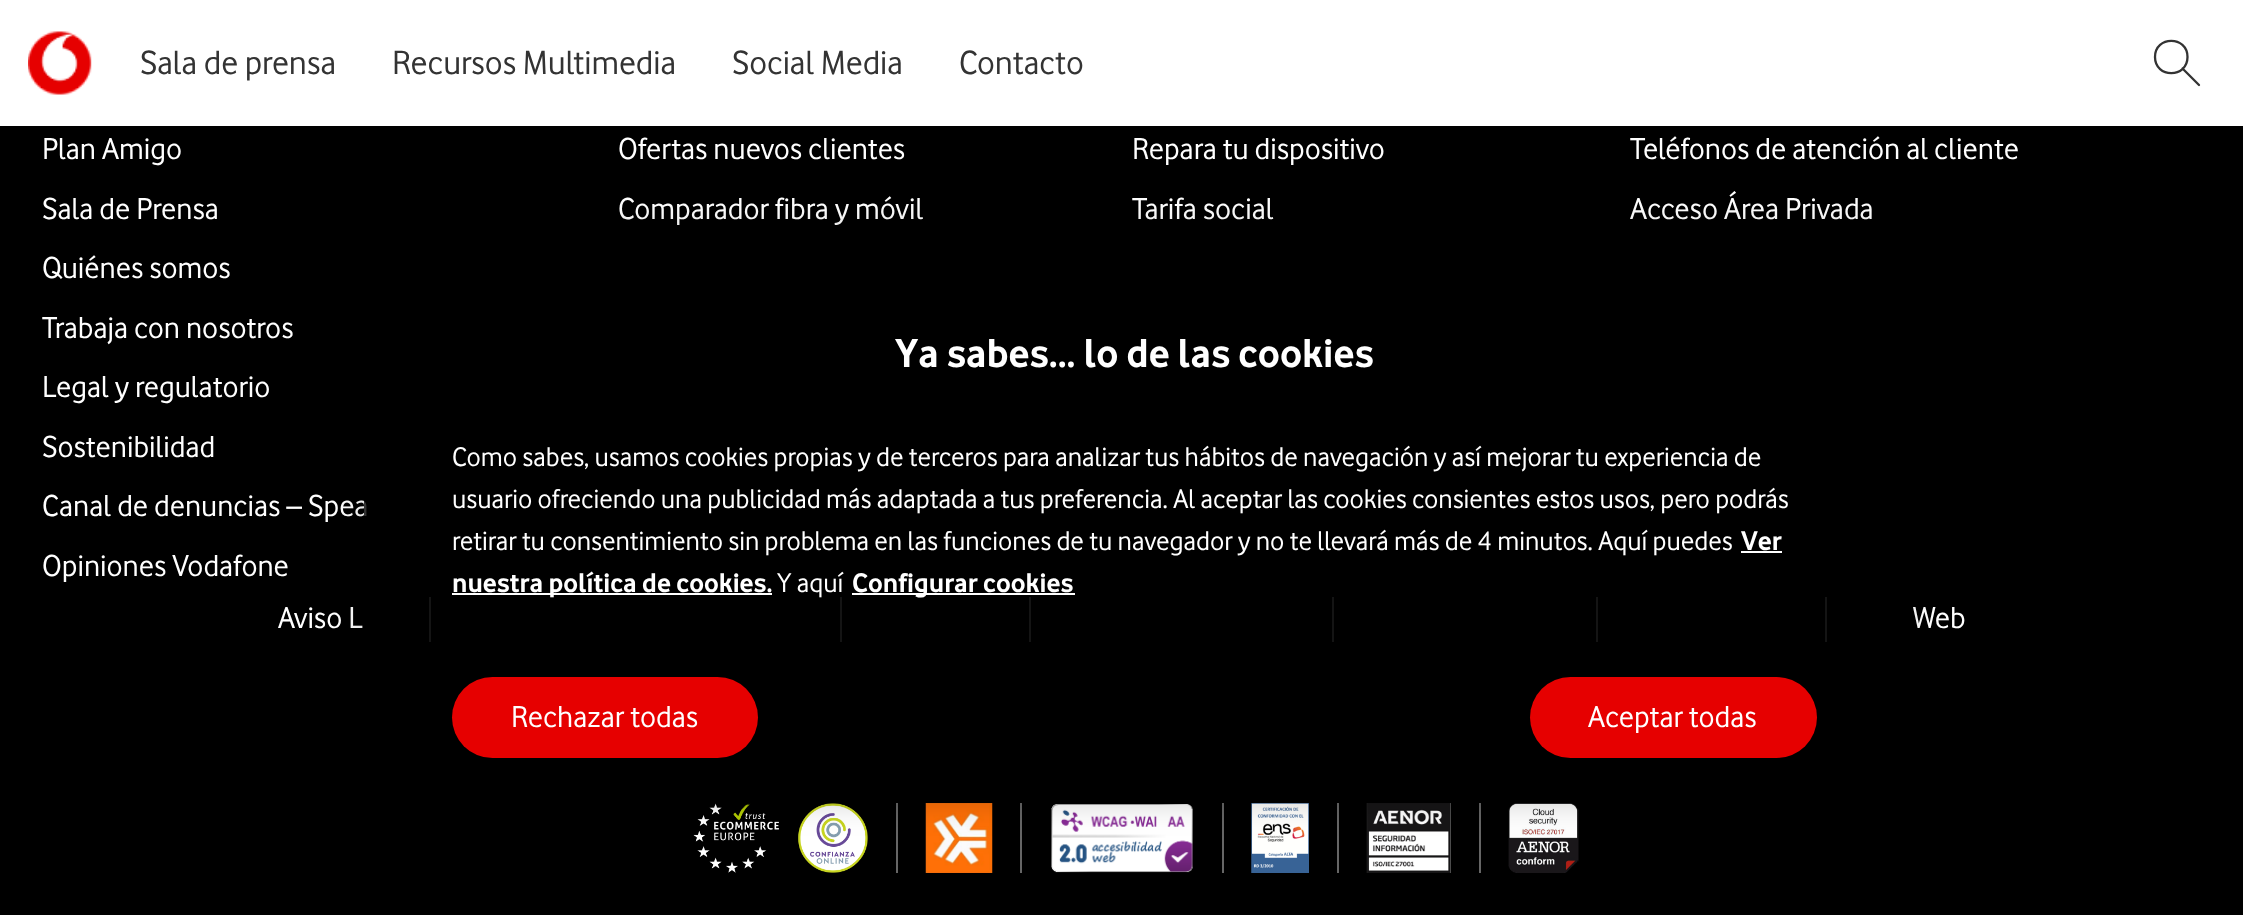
<svg xmlns="http://www.w3.org/2000/svg" width="2243" height="915" viewBox="0 0 2243 915">
  <defs>
    <clipPath id="clip1"><path d="M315 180H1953V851H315ZM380 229H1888C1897 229 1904 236 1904 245V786C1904 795 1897 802 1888 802H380C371 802 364 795 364 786V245C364 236 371 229 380 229Z" clip-rule="evenodd"/></clipPath>
  </defs>
  <rect width="100%" height="100%" fill="rgb(0,0,0)"/>
  <rect x="0" y="0" width="2243" height="126" fill="rgb(255,255,255)"/>
  <image x="28" y="31" width="64" height="64" href="pic1.png"/>
  <g font-family="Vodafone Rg" font-size="35" fill="rgb(51,51,51)">
    <text x="140" y="74">Sala de prensa</text>
    <text x="392" y="74">Recursos Multimedia</text>
    <text x="732" y="74">Social Media</text>
    <text x="959" y="74">Contacto</text>
  </g>
  <path d="M2182.5 68.5L2199 85M2187.5 57C2187.5 78.5 2155 78.5 2155 57C2155 35.5 2187.5 35.5 2187.5 57Z" fill="none" stroke="rgb(51,51,51)" stroke-width="2.3" stroke-linecap="round" stroke-linejoin="round"/>
  <g font-family="Vodafone Rg" font-size="31.5" fill="rgb(255,255,255)">
    <text>
      <tspan x="42" y="159">Plan Amigo</tspan>
      <tspan x="42" y="219">Sala de Prensa</tspan>
      <tspan x="42" y="278">Quiénes somos</tspan>
      <tspan x="42" y="338">Trabaja con nosotros</tspan>
      <tspan x="42" y="397">Legal y regulatorio</tspan>
      <tspan x="42" y="457">Sostenibilidad</tspan>
      <tspan x="42" y="516">Canal de denuncias – Spea</tspan>
      <tspan x="42" y="576">Opiniones Vodafone</tspan>
    </text>
    <text>
      <tspan x="618" y="159">Ofertas nuevos clientes</tspan>
      <tspan x="618" y="219">Comparador fibra y móvil</tspan>
    </text>
    <text>
      <tspan x="1132" y="159">Repara tu dispositivo</tspan>
      <tspan x="1132" y="219">Tarifa social</tspan>
    </text>
    <text>
      <tspan x="1630" y="159">Teléfonos de atención al cliente</tspan>
      <tspan x="1630" y="219">Acceso Área Privada</tspan>
    </text>
    <text x="278" y="628">Aviso L</text>
  </g>
  <rect x="429" y="597" width="2" height="45" fill="rgb(102,102,102)"/>
  <rect x="840" y="597" width="2" height="45" fill="rgb(102,102,102)"/>
  <rect x="1029" y="597" width="2" height="45" fill="rgb(102,102,102)"/>
  <rect x="1332" y="597" width="2" height="45" fill="rgb(102,102,102)"/>
  <rect x="1596" y="597" width="2" height="45" fill="rgb(102,102,102)"/>
  <rect x="1825" y="597" width="2" height="45" fill="rgb(102,102,102)"/>
  <text x="1913" y="628" font-family="Vodafone Rg" font-size="31.5" fill="rgb(255,255,255)">Web</text>
  <image x="693" y="803" width="175" height="70" href="pic2.png"/>
  <rect x="896" y="803" width="2" height="70" fill="rgb(102,102,102)"/>
  <image x="925" y="803" width="68" height="70" href="pic3.png"/>
  <rect x="1020" y="803" width="2" height="70" fill="rgb(102,102,102)"/>
  <image x="1051" y="804" width="142" height="69" href="pic4.png"/>
  <rect x="1222" y="803" width="2" height="70" fill="rgb(102,102,102)"/>
  <image x="1251" y="803" width="58" height="70" href="pic5.png"/>
  <rect x="1337" y="803" width="2" height="70" fill="rgb(102,102,102)"/>
  <image x="1366" y="803" width="85" height="70" href="pic6.png"/>
  <rect x="1479" y="803" width="2" height="70" fill="rgb(102,102,102)"/>
  <image x="1508" y="803" width="71" height="70" href="pic7.png"/>
  <g clip-path="url(#clip1)">
    <rect x="364" y="229" width="1540" height="573" rx="16" fill="rgba(0,0,0,0.2)" filter="blur(16px)"/>
  </g>
  <rect x="364" y="229" width="1540" height="573" rx="16" fill="rgba(0,0,0,0.8)"/>
  <text x="895" y="367" font-family="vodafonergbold" font-size="42" font-weight="bold" fill="rgb(255,255,255)">Ya sabes... lo de las cookies</text>
  <g font-family="Vodafone Rg" font-size="28" fill="rgb(255,255,255)">
    <text>
      <tspan x="452" y="466">Como sabes, usamos cookies propias y de terceros para analizar tus hábitos de navegación y así mejorar tu experiencia de</tspan>
      <tspan x="452" y="508">usuario ofreciendo una publicidad más adaptada a tus preferencia. Al aceptar las cookies consientes estos usos, pero podrás</tspan>
      <tspan x="452" y="550">retirar tu consentimiento sin problema en las funciones de tu navegador y no te llevará más de 4 minutos. Aquí puedes</tspan>
    </text>
  </g>
  <text x="1741" y="550" font-family="vodafonergbold" font-size="28" font-weight="bold" fill="rgb(255,255,255)">Ver</text>
  <rect x="1741" y="551" width="41" height="2" fill="rgb(255,255,255)"/>
  <rect x="452" y="593" width="320" height="2" fill="rgb(255,255,255)"/>
  <text x="452" y="592" font-family="vodafonergbold" font-size="28" font-weight="bold" fill="rgb(255,255,255)">nuestra política de cookies.</text>
  <text x="777" y="592" font-family="Vodafone Rg" font-size="28" fill="rgb(255,255,255)">Y aquí</text>
  <rect x="852" y="593" width="223" height="2" fill="rgb(255,255,255)"/>
  <text x="852" y="592" font-family="vodafonergbold" font-size="28" font-weight="bold" fill="rgb(255,255,255)">Configurar cookies</text>
  <rect x="452" y="677" width="306" height="81" rx="40.5" fill="rgb(230,0,0)"/>
  <text x="511" y="727" font-family="Vodafone Rg" font-size="31.5" fill="rgb(255,255,255)">Rechazar todas</text>
  <rect x="1530" y="677" width="287" height="81" rx="40.5" fill="rgb(230,0,0)"/>
  <text x="1588" y="727" font-family="Vodafone Rg" font-size="31.5" fill="rgb(255,255,255)">Aceptar todas</text>
</svg>
